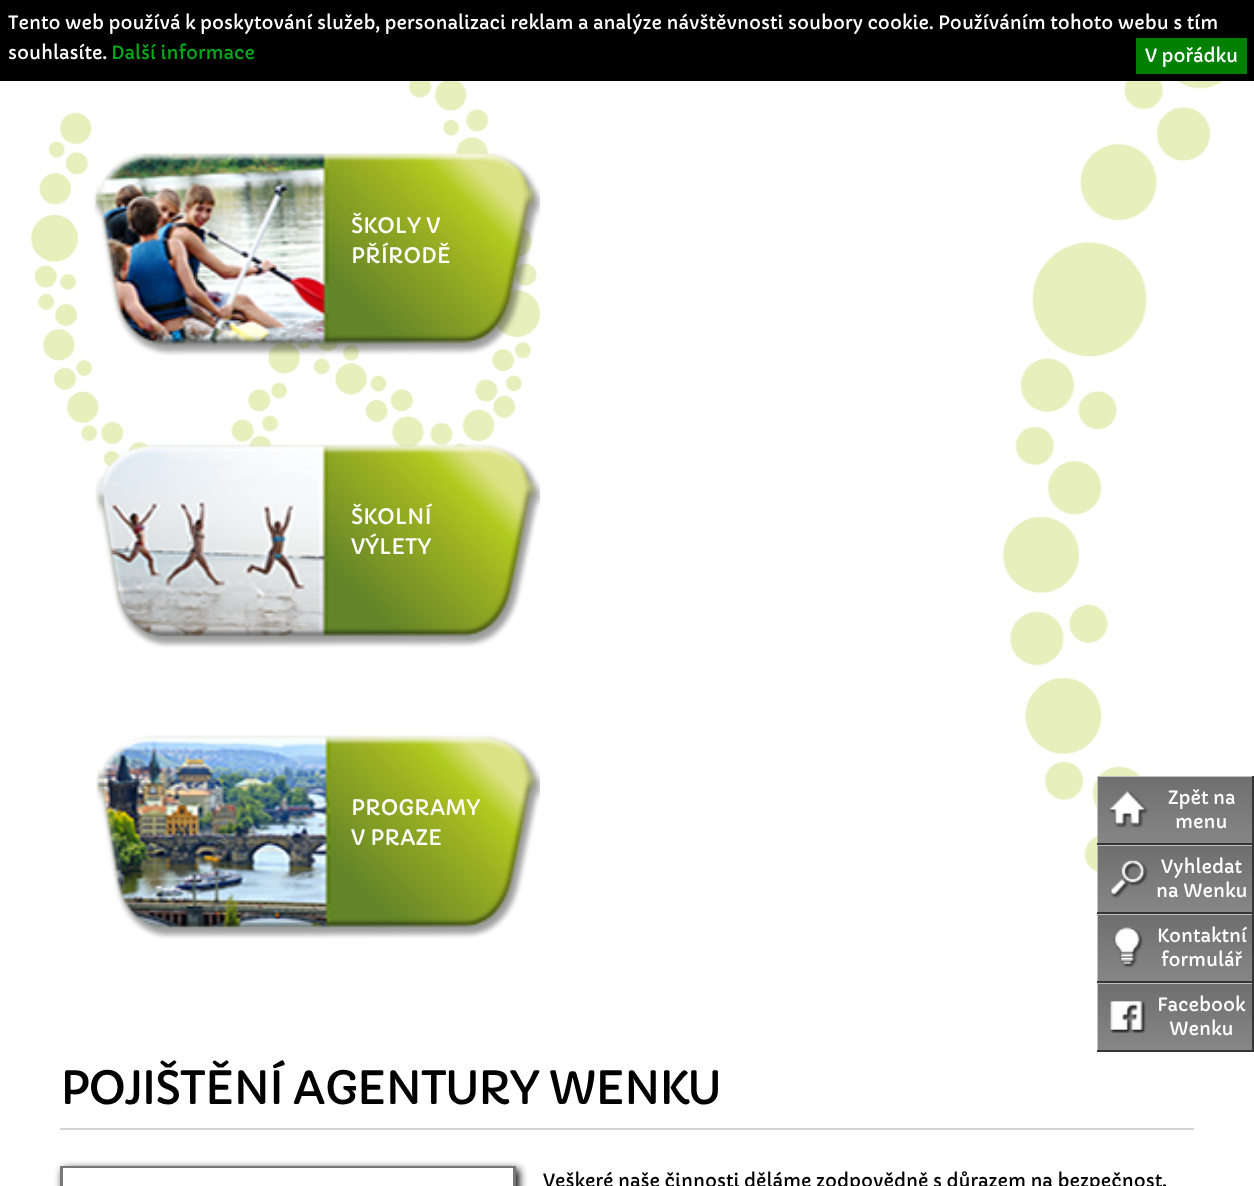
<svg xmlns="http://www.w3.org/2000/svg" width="1254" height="1186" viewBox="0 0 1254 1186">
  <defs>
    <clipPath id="clip1"><path d="M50 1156H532V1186H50ZM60 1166H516V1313H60Z" clip-rule="evenodd"/></clipPath>
    <linearGradient id="g1" gradientUnits="userSpaceOnUse" x1="1175" y1="776" x2="1175" y2="845"><stop offset="0" stop-color="rgb(110,110,110)"/><stop offset="1" stop-color="rgb(135,135,135)"/></linearGradient>
    <clipPath id="clip2"><rect x="1097" y="776" width="157" height="69"/></clipPath>
    <linearGradient id="g2" gradientUnits="userSpaceOnUse" x1="1175" y1="845" x2="1175" y2="914"><stop offset="0" stop-color="rgb(110,110,110)"/><stop offset="1" stop-color="rgb(135,135,135)"/></linearGradient>
    <clipPath id="clip3"><rect x="1097" y="845" width="157" height="69"/></clipPath>
    <linearGradient id="g3" gradientUnits="userSpaceOnUse" x1="1175" y1="914" x2="1175" y2="983"><stop offset="0" stop-color="rgb(110,110,110)"/><stop offset="1" stop-color="rgb(135,135,135)"/></linearGradient>
    <clipPath id="clip4"><rect x="1097" y="914" width="157" height="69"/></clipPath>
    <linearGradient id="g4" gradientUnits="userSpaceOnUse" x1="1175" y1="983" x2="1175" y2="1052"><stop offset="0" stop-color="rgb(110,110,110)"/><stop offset="1" stop-color="rgb(135,135,135)"/></linearGradient>
    <clipPath id="clip5"><rect x="1097" y="983" width="157" height="69"/></clipPath>
  </defs>
  <rect width="100%" height="100%" fill="rgb(255,255,255)"/>
  <image x="29" y="81" width="1221" height="905" href="pic1.png"/>
  <rect x="0" y="0" width="1254" height="81" fill="rgb(0,0,0)"/>
  <g font-family="Capriola" font-size="18" fill="rgb(255,255,255)">
    <text>
      <tspan x="8" y="29">Tento web používá k poskytování služeb, personalizaci reklam a analýze návštěvnosti soubory cookie. Používáním tohoto webu s tím</tspan>
      <tspan x="8" y="59">souhlasíte.</tspan>
    </text>
  </g>
  <text x="111" y="59" font-family="Capriola" font-size="18" fill="rgb(0,169,26)">Další informace</text>
  <rect x="1136" y="38" width="111" height="36" fill="rgb(0,128,0)"/>
  <text x="1145" y="62" font-family="Capriola" font-size="18" fill="rgb(255,255,255)">V pořádku</text>
  <image x="94" y="153" width="446" height="203" href="pic2.png"/>
  <g font-family="Capriola" font-size="21" fill="rgb(255,255,255)">
    <text>
      <tspan x="351" y="233">ŠKOLY V</tspan>
      <tspan x="351" y="263">PŘÍRODĚ</tspan>
    </text>
  </g>
  <image x="95" y="444" width="445" height="204" href="pic3.png"/>
  <g font-family="Capriola" font-size="21" fill="rgb(255,255,255)">
    <text>
      <tspan x="351" y="524">ŠKOLNÍ</tspan>
      <tspan x="351" y="554">VÝLETY</tspan>
    </text>
  </g>
  <image x="96" y="735" width="444" height="204" href="pic4.png"/>
  <g font-family="Capriola" font-size="21" fill="rgb(255,255,255)">
    <text>
      <tspan x="351" y="815">PROGRAMY</tspan>
      <tspan x="351" y="845">V PRAZE</tspan>
    </text>
  </g>
  <rect x="60" y="1128" width="1134" height="2" fill="rgb(212,212,212)"/>
  <text x="60" y="1104" font-family="Capriola" font-size="45" letter-spacing="-1.5" fill="rgb(0,0,0)">POJIŠTĚNÍ AGENTURY WENKU</text>
  <g clip-path="url(#clip1)">
    <rect x="63" y="1169" width="456" height="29" fill="rgb(0,0,0)" filter="blur(4px)"/>
  </g>
  <rect x="61.5" y="1167.5" width="453" height="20" fill="none" stroke="rgb(119,119,119)" stroke-width="3"/>
  <rect x="63" y="1168" width="450" height="1" fill="rgb(255,255,255)"/>
  <text x="543" y="1187" font-family="Capriola" font-size="18" fill="rgb(0,0,0)">Veškeré naše činnosti děláme zodpovědně s důrazem na bezpečnost.</text>
  <rect x="1098" y="777" width="154" height="66" fill="url(#g1)"/>
  <g clip-path="url(#clip2)">
    <path d="M948 627H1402V993H948ZM1098 777H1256V846H1098Z" fill="rgb(192,192,192)" fill-rule="evenodd"/>
    <path d="M948 627H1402V993H948ZM1095 774H1252V843H1095Z" fill="rgb(53,53,53)" fill-rule="evenodd"/>
  </g>
  <image x="1109" y="791" width="39" height="37" href="pic5.png"/>
  <g font-family="Capriola" font-size="18" fill="rgb(255,255,255)">
    <text x="1168" y="804">Zpět na</text>
    <text x="1175" y="828">menu</text>
  </g>
  <rect x="1098" y="846" width="154" height="66" fill="url(#g2)"/>
  <g clip-path="url(#clip3)">
    <path d="M948 696H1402V1062H948ZM1098 846H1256V915H1098Z" fill="rgb(192,192,192)" fill-rule="evenodd"/>
    <path d="M948 696H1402V1062H948ZM1095 843H1252V912H1095Z" fill="rgb(53,53,53)" fill-rule="evenodd"/>
  </g>
  <image x="1110" y="860" width="38" height="38" href="pic6.png"/>
  <g font-family="Capriola" font-size="18" fill="rgb(255,255,255)">
    <text x="1161" y="873">Vyhledat</text>
    <text x="1156" y="897">na Wenku</text>
  </g>
  <rect x="1098" y="915" width="154" height="66" fill="url(#g3)"/>
  <g clip-path="url(#clip4)">
    <path d="M948 765H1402V1131H948ZM1098 915H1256V984H1098Z" fill="rgb(192,192,192)" fill-rule="evenodd"/>
    <path d="M948 765H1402V1131H948ZM1095 912H1252V981H1095Z" fill="rgb(53,53,53)" fill-rule="evenodd"/>
  </g>
  <image x="1113" y="927" width="30" height="41" href="pic7.png"/>
  <g font-family="Capriola" font-size="18" fill="rgb(255,255,255)">
    <text x="1157" y="942">Kontaktní</text>
    <text x="1161" y="966">formulář</text>
  </g>
  <rect x="1098" y="984" width="154" height="66" fill="url(#g4)"/>
  <g clip-path="url(#clip5)">
    <path d="M948 834H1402V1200H948ZM1098 984H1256V1053H1098Z" fill="rgb(192,192,192)" fill-rule="evenodd"/>
    <path d="M948 834H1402V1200H948ZM1095 981H1252V1050H1095Z" fill="rgb(53,53,53)" fill-rule="evenodd"/>
  </g>
  <image x="1110" y="1001" width="36" height="32" href="pic8.png"/>
  <g font-family="Capriola" font-size="18" fill="rgb(255,255,255)">
    <text x="1157" y="1011">Facebook</text>
    <text x="1169" y="1035">Wenku</text>
  </g>
</svg>
